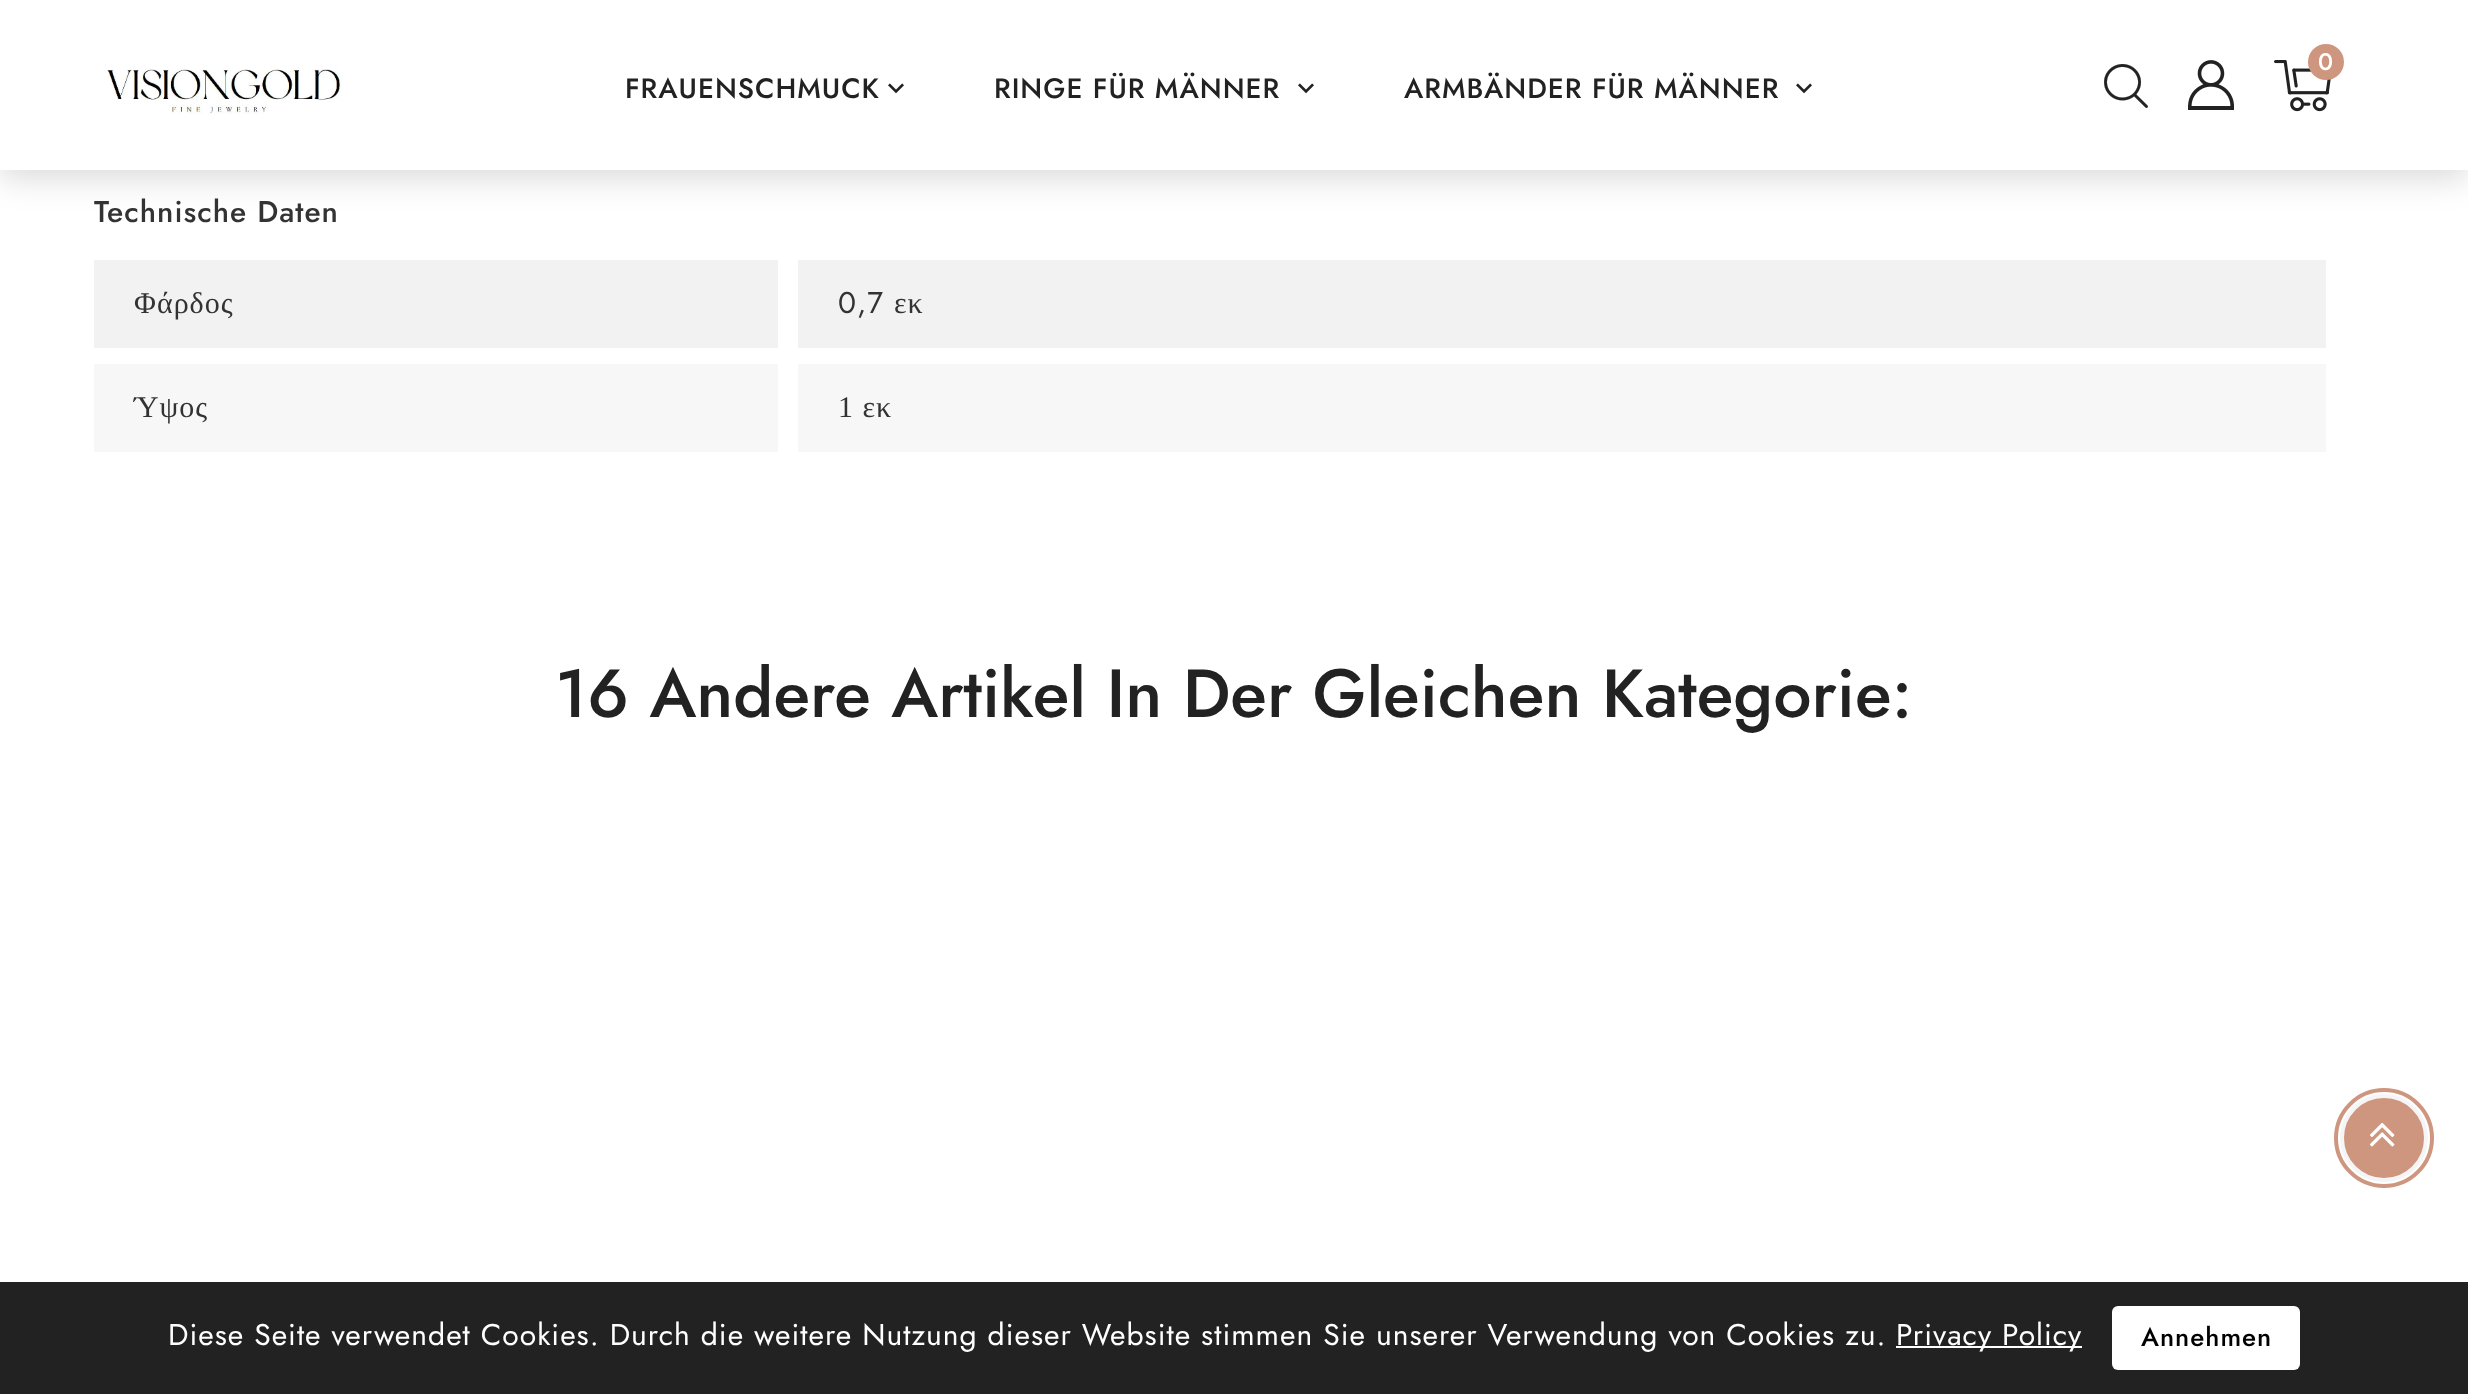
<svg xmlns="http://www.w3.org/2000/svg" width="2468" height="1394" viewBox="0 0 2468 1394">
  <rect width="100%" height="100%" fill="rgb(255,255,255)"/>
  <rect x="0" y="8" width="2468" height="170" fill="rgba(0,0,0,0.15)" filter="blur(16px)"/>
  <rect x="0" y="0" width="2468" height="170" fill="rgb(255,255,255)"/>
  <image x="2104" y="64" width="44" height="44" href="pic1.png"/>
  <image x="2188" y="60" width="46" height="50" href="pic2.png"/>
  <image x="2274" y="60" width="57" height="52" href="pic3.png"/>
  <circle cx="2326" cy="62" r="18" fill="rgb(206,150,126)"/>
  <text x="2318" y="70" font-family="Jost" font-size="24" font-weight="500" letter-spacing="1" fill="rgb(255,255,255)">0</text>
  <image x="105" y="69" width="237" height="45" href="pic4.png"/>
  <text x="625" y="98" font-family="Jost" font-size="28" font-weight="500" letter-spacing="1" fill="rgb(34,34,34)">FRAUENSCHMUCK</text>
  <image x="888" y="83" width="16" height="11" href="pic5.png"/>
  <text x="994" y="98" font-family="Jost" font-size="28" font-weight="500" letter-spacing="1" fill="rgb(34,34,34)">RINGE FÜR MÄNNER</text>
  <image x="1298" y="83" width="16" height="11" href="pic5.png"/>
  <text x="1404" y="98" font-family="Jost" font-size="28" font-weight="500" letter-spacing="1" fill="rgb(34,34,34)">ARMBÄNDER FÜR MÄNNER</text>
  <image x="1796" y="83" width="16" height="11" href="pic5.png"/>
  <text x="94" y="222" font-family="Jost" font-size="30" font-weight="500" letter-spacing="1" fill="rgb(51,51,51)">Technische Daten</text>
  <rect x="94" y="260" width="684" height="88" fill="rgb(242,242,242)"/>
  <text x="134" y="313" font-family="Liberation Serif" font-size="30" letter-spacing="1" fill="rgb(51,51,51)">Φάρδος</text>
  <rect x="798" y="260" width="1528" height="88" fill="rgb(242,242,242)"/>
  <text x="838" y="313" font-family="Jost" font-size="30" letter-spacing="1" fill="rgb(51,51,51)">0,7</text>
  <text x="894" y="313" font-family="Liberation Serif" font-size="30" letter-spacing="1" fill="rgb(51,51,51)">εκ</text>
  <rect x="94" y="364" width="684" height="88" fill="rgb(247,247,247)"/>
  <text x="134" y="417" font-family="Liberation Serif" font-size="30" letter-spacing="1" fill="rgb(51,51,51)">Ύψος</text>
  <rect x="798" y="364" width="1528" height="88" fill="rgb(247,247,247)"/>
  <text x="838" y="417" font-family="Liberation Serif" font-size="30" letter-spacing="1" fill="rgb(51,51,51)">1 εκ</text>
  <text x="555" y="717" font-family="Jost" font-size="68" font-weight="500" fill="rgb(34,34,34)">16 Andere Artikel In Der Gleichen Kategorie:</text>
  <circle cx="2384" cy="1138" r="42" fill="rgb(206,150,126)" stroke="rgb(245,245,245)" stroke-width="4"/>
  <image x="2370" y="1122" width="25" height="25" href="pic6.png"/>
  <circle cx="2384" cy="1138" r="48" fill="none" stroke="rgb(206,150,126)" stroke-width="4"/>
  <rect x="0" y="1282" width="2468" height="112" fill="rgb(34,34,34)"/>
  <text x="168" y="1345" font-family="Jost" font-size="30" letter-spacing="1" fill="rgb(255,255,255)">Diese Seite verwendet Cookies. Durch die weitere Nutzung dieser Website stimmen Sie unserer Verwendung von Cookies zu.</text>
  <rect x="1896" y="1346" width="186" height="2" fill="rgb(255,255,255)"/>
  <text x="1896" y="1345" font-family="Jost" font-size="30" letter-spacing="1" fill="rgb(255,255,255)">Privacy Policy</text>
  <rect x="2112" y="1306" width="188" height="64" rx="6" fill="rgb(255,255,255)"/>
  <text x="2141" y="1346" font-family="Jost" font-size="26" font-weight="500" letter-spacing="1" fill="rgb(0,0,0)">Annehmen</text>
</svg>
